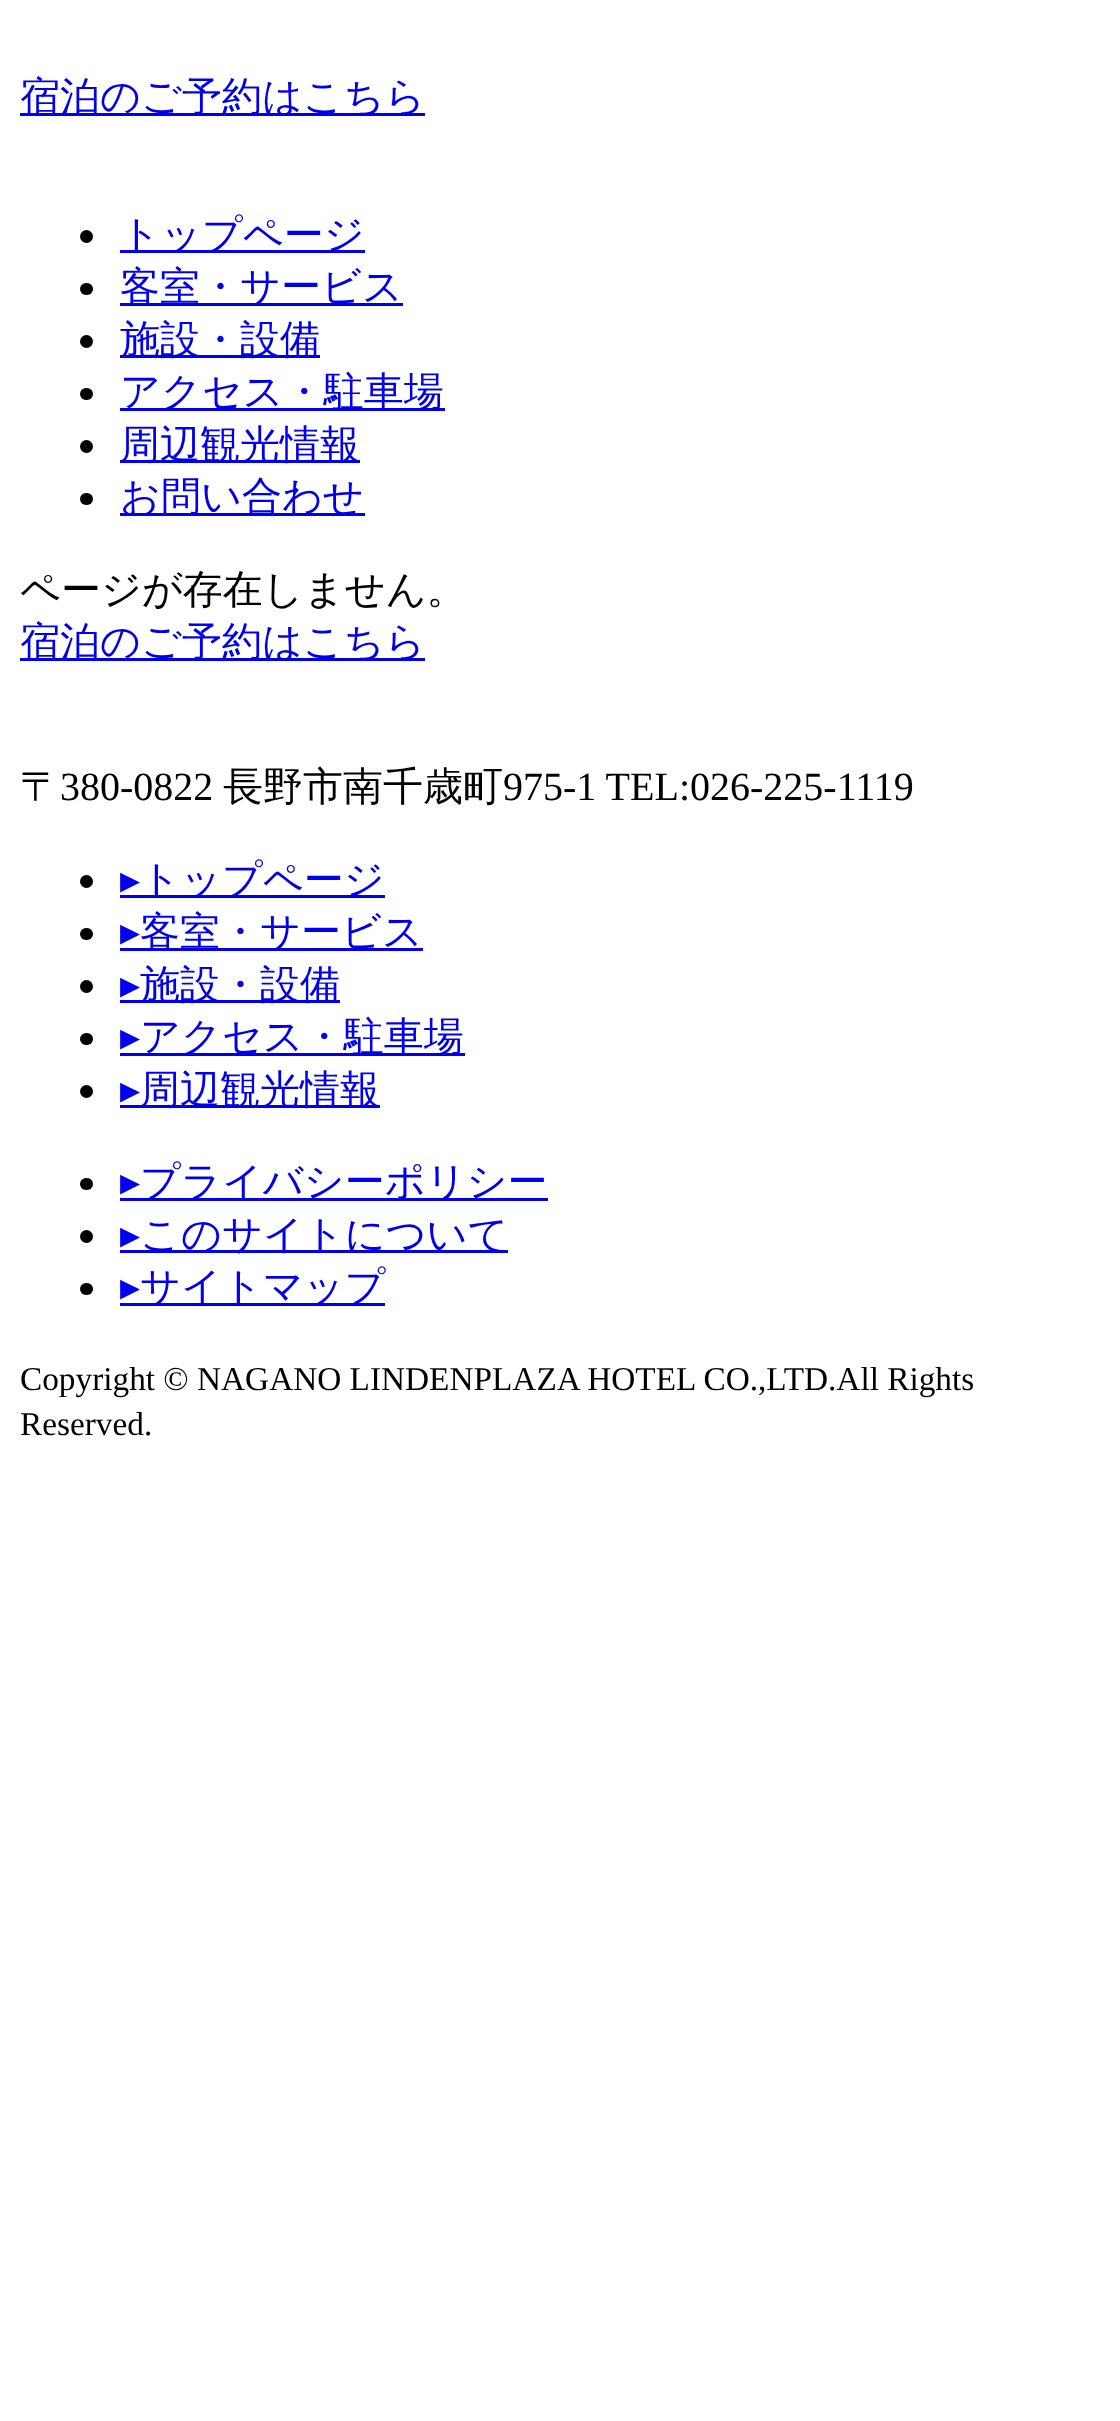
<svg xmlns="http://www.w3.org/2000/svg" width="1120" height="2421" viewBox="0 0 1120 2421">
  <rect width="100%" height="100%" fill="rgb(255,255,255)"/>
  <rect x="20" y="113" width="405" height="3" fill="rgb(0,0,238)"/>
  <text x="20" y="110" font-family="WenQuanYi Zen Hei" font-size="40" font-weight="500" fill="rgb(0,0,238)">宿泊のご予約はこちら</text>
  <circle cx="86.5" cy="236.5" r="6.5" fill="rgb(0,0,0)"/>
  <rect x="120" y="250" width="245" height="3" fill="rgb(0,0,238)"/>
  <text x="120" y="248" font-family="WenQuanYi Zen Hei" font-size="40" font-weight="500" fill="rgb(0,0,238)">トップページ</text>
  <rect x="80" y="283" width="13" height="12" rx="6" fill="rgb(0,0,0)"/>
  <rect x="120" y="303" width="283" height="3" fill="rgb(0,0,238)"/>
  <text x="120" y="300" font-family="WenQuanYi Zen Hei" font-size="40" font-weight="500" fill="rgb(0,0,238)">客室・サービス</text>
  <circle cx="86.5" cy="341.5" r="6.5" fill="rgb(0,0,0)"/>
  <rect x="120" y="355" width="200" height="3" fill="rgb(0,0,238)"/>
  <text x="120" y="353" font-family="WenQuanYi Zen Hei" font-size="40" font-weight="500" fill="rgb(0,0,238)">施設・設備</text>
  <rect x="80" y="388" width="13" height="12" rx="6" fill="rgb(0,0,0)"/>
  <rect x="120" y="408" width="325" height="3" fill="rgb(0,0,238)"/>
  <text x="120" y="405" font-family="WenQuanYi Zen Hei" font-size="40" font-weight="500" fill="rgb(0,0,238)">アクセス・駐車場</text>
  <circle cx="86.5" cy="446.5" r="6.5" fill="rgb(0,0,0)"/>
  <rect x="120" y="460" width="240" height="3" fill="rgb(0,0,238)"/>
  <text x="120" y="458" font-family="WenQuanYi Zen Hei" font-size="40" font-weight="500" fill="rgb(0,0,238)">周辺観光情報</text>
  <rect x="80" y="493" width="13" height="12" rx="6" fill="rgb(0,0,0)"/>
  <rect x="120" y="513" width="245" height="3" fill="rgb(0,0,238)"/>
  <text x="120" y="510" font-family="WenQuanYi Zen Hei" font-size="40" font-weight="500" fill="rgb(0,0,238)">お問い合わせ</text>
  <text x="20" y="603" font-family="WenQuanYi Zen Hei" font-size="40" font-weight="500" fill="rgb(0,0,0)">ページが存在しません。</text>
  <rect x="20" y="658" width="405" height="3" fill="rgb(0,0,238)"/>
  <text x="20" y="655" font-family="WenQuanYi Zen Hei" font-size="40" font-weight="500" fill="rgb(0,0,238)">宿泊のご予約はこちら</text>
  <text x="20" y="800" font-family="WenQuanYi Zen Hei" font-size="40" font-weight="500" fill="rgb(0,0,0)">〒</text>
  <text x="60" y="800" font-family="Liberation Serif" font-size="40" fill="rgb(0,0,0)">380-0822</text>
  <text x="223" y="800" font-family="WenQuanYi Zen Hei" font-size="40" font-weight="500" fill="rgb(0,0,0)">長野市南千歳町</text>
  <text x="503" y="800" font-family="Liberation Serif" font-size="40" fill="rgb(0,0,0)">975-1 TEL:026-225-1119</text>
  <circle cx="86.5" cy="881.5" r="6.5" fill="rgb(0,0,0)"/>
  <text x="120" y="893" font-family="DejaVu Sans" font-size="40" fill="rgb(0,0,238)">▸</text>
  <rect x="120" y="895" width="265" height="3" fill="rgb(0,0,238)"/>
  <text x="140" y="893" font-family="WenQuanYi Zen Hei" font-size="40" font-weight="500" fill="rgb(0,0,238)">トップページ</text>
  <rect x="80" y="928" width="13" height="12" rx="6" fill="rgb(0,0,0)"/>
  <text x="120" y="945" font-family="DejaVu Sans" font-size="40" fill="rgb(0,0,238)">▸</text>
  <rect x="120" y="948" width="303" height="3" fill="rgb(0,0,238)"/>
  <text x="140" y="945" font-family="WenQuanYi Zen Hei" font-size="40" font-weight="500" fill="rgb(0,0,238)">客室・サービス</text>
  <circle cx="86.5" cy="986.5" r="6.5" fill="rgb(0,0,0)"/>
  <text x="120" y="998" font-family="DejaVu Sans" font-size="40" fill="rgb(0,0,238)">▸</text>
  <rect x="120" y="1000" width="220" height="3" fill="rgb(0,0,238)"/>
  <text x="140" y="998" font-family="WenQuanYi Zen Hei" font-size="40" font-weight="500" fill="rgb(0,0,238)">施設・設備</text>
  <rect x="80" y="1033" width="13" height="12" rx="6" fill="rgb(0,0,0)"/>
  <text x="120" y="1050" font-family="DejaVu Sans" font-size="40" fill="rgb(0,0,238)">▸</text>
  <rect x="120" y="1053" width="345" height="3" fill="rgb(0,0,238)"/>
  <text x="140" y="1050" font-family="WenQuanYi Zen Hei" font-size="40" font-weight="500" fill="rgb(0,0,238)">アクセス・駐車場</text>
  <circle cx="86.5" cy="1091.5" r="6.5" fill="rgb(0,0,0)"/>
  <text x="120" y="1103" font-family="DejaVu Sans" font-size="40" fill="rgb(0,0,238)">▸</text>
  <rect x="120" y="1105" width="260" height="3" fill="rgb(0,0,238)"/>
  <text x="140" y="1103" font-family="WenQuanYi Zen Hei" font-size="40" font-weight="500" fill="rgb(0,0,238)">周辺観光情報</text>
  <rect x="80" y="1178" width="13" height="12" rx="6" fill="rgb(0,0,0)"/>
  <text x="120" y="1195" font-family="DejaVu Sans" font-size="40" fill="rgb(0,0,238)">▸</text>
  <rect x="120" y="1198" width="428" height="3" fill="rgb(0,0,238)"/>
  <text x="140" y="1195" font-family="WenQuanYi Zen Hei" font-size="40" font-weight="500" fill="rgb(0,0,238)">プライバシーポリシー</text>
  <circle cx="86.5" cy="1236.5" r="6.5" fill="rgb(0,0,0)"/>
  <text x="120" y="1248" font-family="DejaVu Sans" font-size="40" fill="rgb(0,0,238)">▸</text>
  <rect x="120" y="1250" width="388" height="3" fill="rgb(0,0,238)"/>
  <text x="140" y="1248" font-family="WenQuanYi Zen Hei" font-size="40" font-weight="500" fill="rgb(0,0,238)">このサイトについて</text>
  <rect x="80" y="1283" width="13" height="12" rx="6" fill="rgb(0,0,0)"/>
  <text x="120" y="1300" font-family="DejaVu Sans" font-size="40" fill="rgb(0,0,238)">▸</text>
  <rect x="120" y="1303" width="265" height="3" fill="rgb(0,0,238)"/>
  <text x="140" y="1300" font-family="WenQuanYi Zen Hei" font-size="40" font-weight="500" fill="rgb(0,0,238)">サイトマップ</text>
  <g font-family="Liberation Serif" font-size="33.3" fill="rgb(0,0,0)">
    <text>
      <tspan x="20" y="1390">Copyright © NAGANO LINDENPLAZA HOTEL CO.,LTD.All Rights</tspan>
      <tspan x="20" y="1435">Reserved.</tspan>
    </text>
  </g>
</svg>
